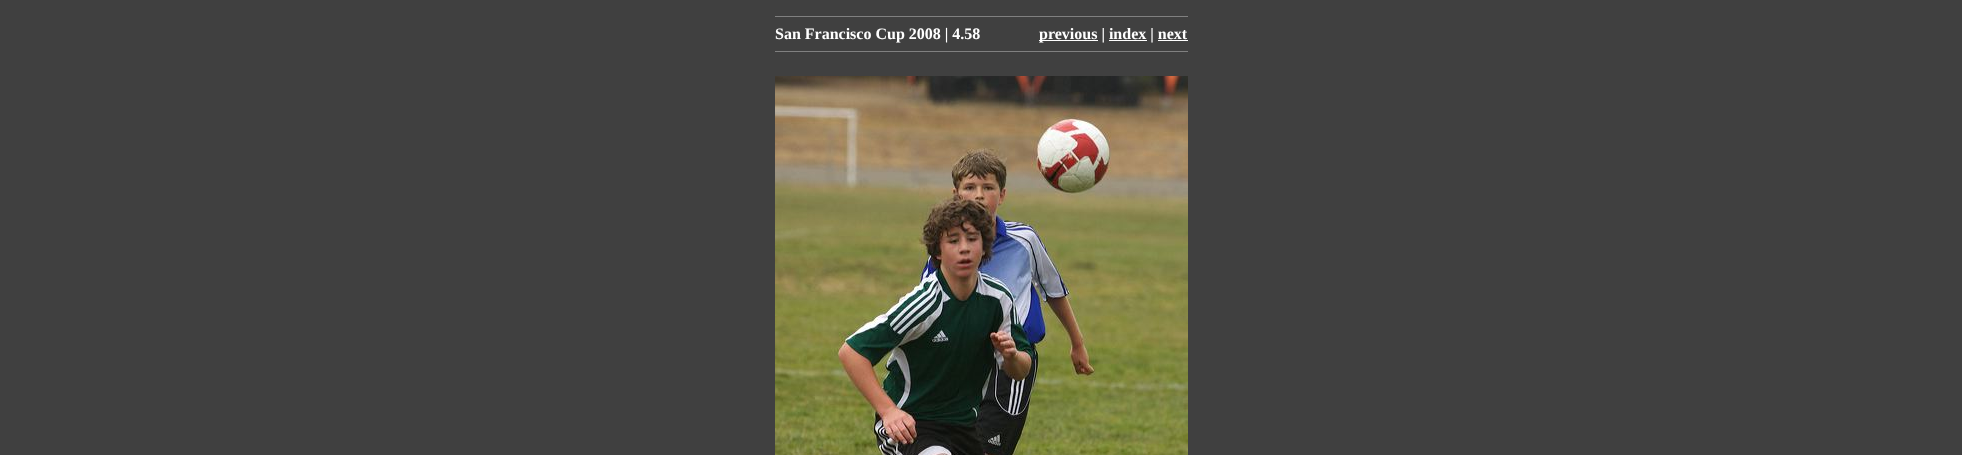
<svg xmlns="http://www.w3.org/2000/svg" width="1962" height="455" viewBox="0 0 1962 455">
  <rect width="100%" height="100%" fill="rgb(64,64,64)"/>
  <rect x="775" y="16" width="413" height="1" fill="rgb(128,128,128)"/>
  <text x="775" y="39" font-family="Liberation Serif" font-size="16" font-weight="bold" fill="rgb(255,255,255)">San Francisco Cup 2008 | 4.58</text>
  <rect x="1039" y="40" width="59" height="1" fill="rgb(255,255,255)"/>
  <text x="1039" y="39" font-family="Liberation Serif" font-size="16" font-weight="bold" fill="rgb(255,255,255)">previous | index | next</text>
  <rect x="1109" y="40" width="38" height="1" fill="rgb(255,255,255)"/>
  <rect x="1158" y="40" width="30" height="1" fill="rgb(255,255,255)"/>
  <rect x="775" y="51" width="413" height="1" fill="rgb(128,128,128)"/>
  <image x="775" y="76" width="413" height="379" href="pic1.png"/>
</svg>
